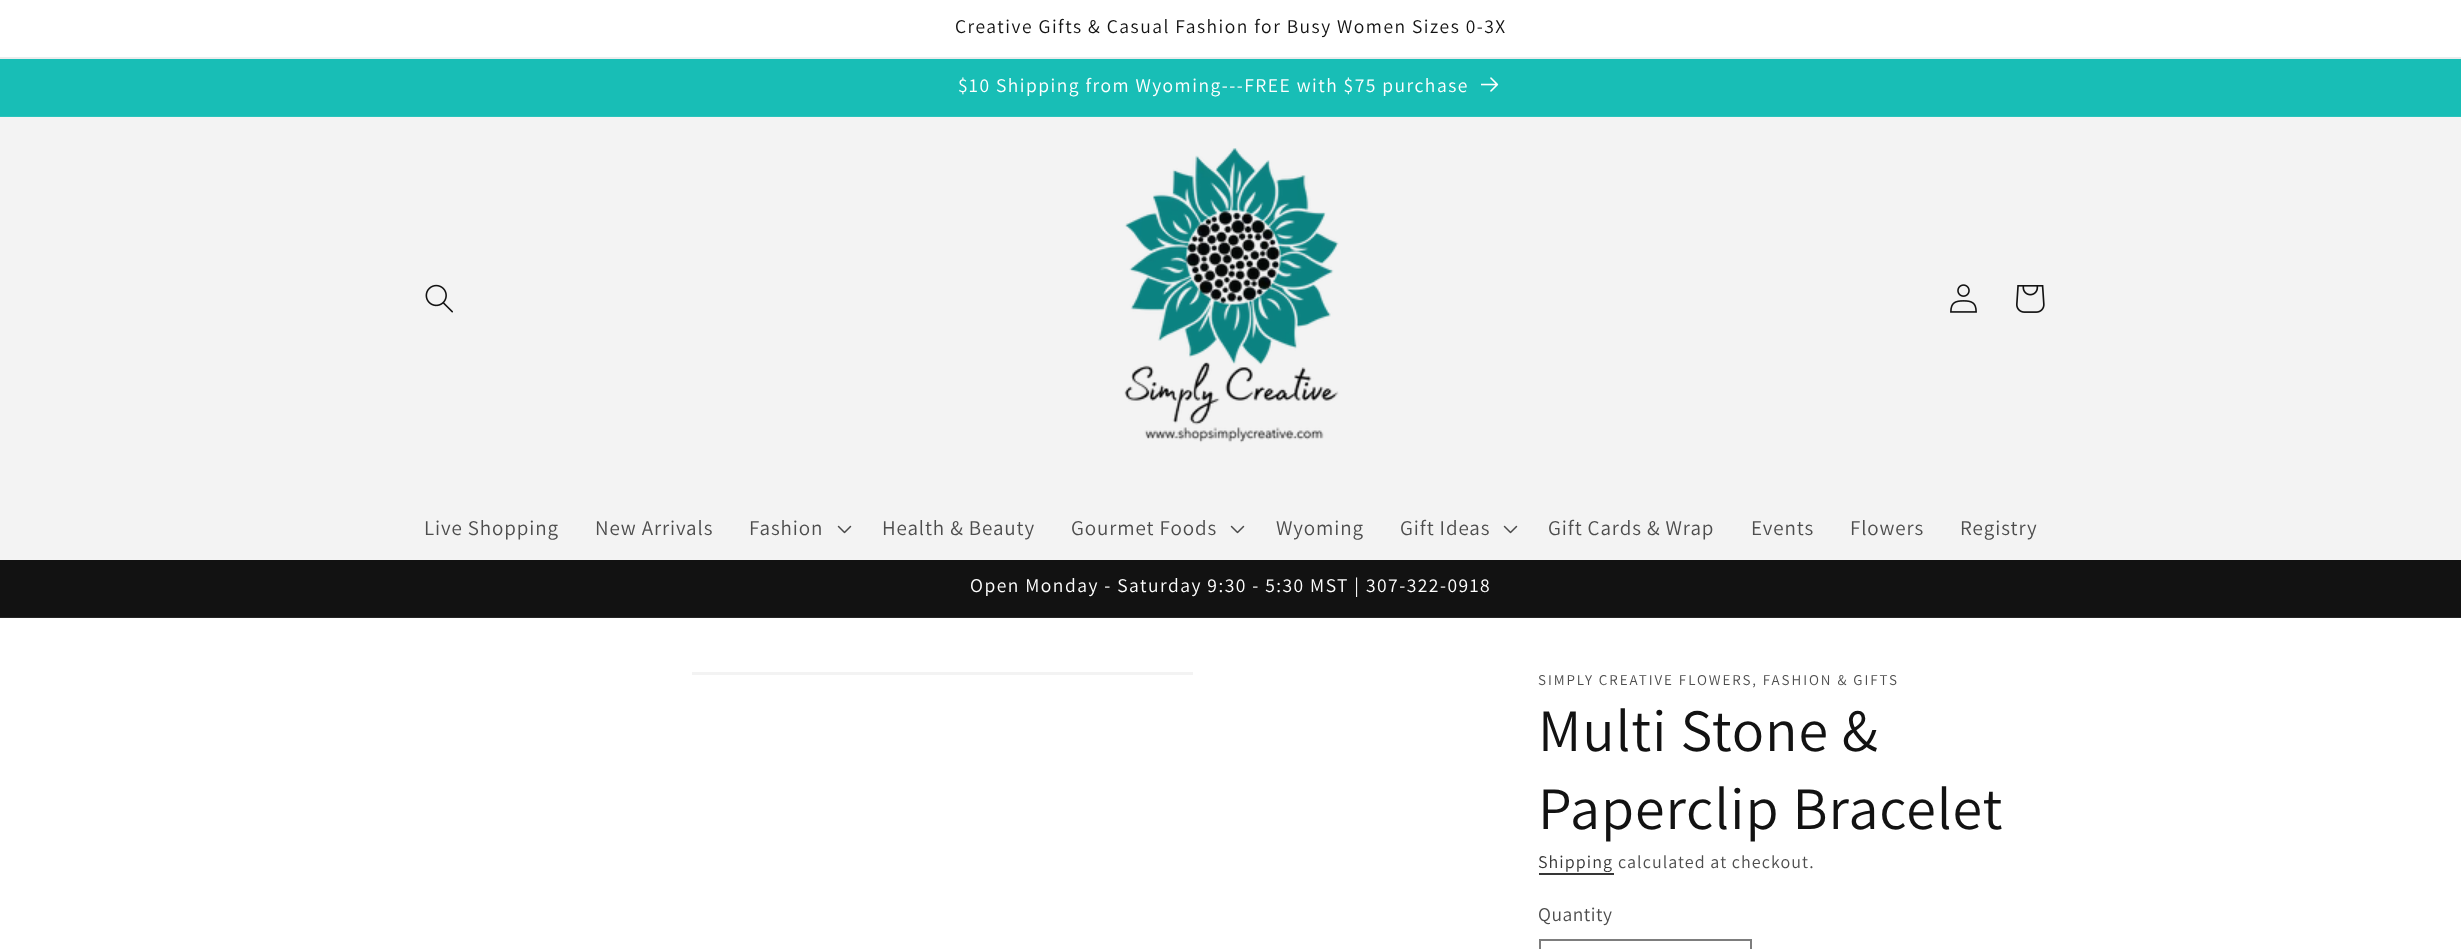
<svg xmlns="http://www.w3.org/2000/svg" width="2461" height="949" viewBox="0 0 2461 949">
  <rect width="100%" height="100%" fill="rgb(255,255,255)"/>
  <rect x="0" y="57" width="2461" height="2" fill="rgb(236,236,236)"/>
  <text x="955" y="33" font-family="Assistant" font-size="19.5" letter-spacing="1.5" fill="rgb(18,18,18)">Creative Gifts &amp; Casual Fashion for Busy Women Sizes 0-3X</text>
  <rect x="0" y="59" width="2461" height="57" fill="rgb(24,190,182)"/>
  <rect x="0" y="116" width="2461" height="1" fill="rgb(42,195,188)"/>
  <text x="958" y="92" font-family="Assistant" font-size="19.5" letter-spacing="1.5" fill="rgb(255,255,255)">$10 Shipping from Wyoming---FREE with $75 purchase</text>
  <image x="1481" y="77" width="18" height="15" href="pic1.png"/>
  <rect x="0" y="118" width="2461" height="442" fill="rgb(243,243,243)"/>
  <rect x="0" y="117" width="2461" height="1" fill="rgb(244,244,244)"/>
  <image x="425" y="284" width="28" height="29" href="pic2.png"/>
  <image x="1124" y="148" width="215" height="295" href="pic3.png"/>
  <image x="1950" y="284" width="27" height="29" href="pic4.png"/>
  <image x="2016" y="285" width="29" height="28" href="pic5.png"/>
  <g font-family="Assistant" font-size="21" letter-spacing="0.9" fill="rgb(77,77,77)">
    <text x="424" y="535">Live Shopping</text>
    <text x="595" y="535">New Arrivals</text>
    <text x="749" y="535">Fashion</text>
  </g>
  <image x="837" y="525" width="15" height="9" href="pic6.png"/>
  <g font-family="Assistant" font-size="21" letter-spacing="0.9" fill="rgb(77,77,77)">
    <text x="882" y="535">Health &amp; Beauty</text>
    <text x="1071" y="535">Gourmet Foods</text>
  </g>
  <image x="1230" y="525" width="15" height="9" href="pic6.png"/>
  <g font-family="Assistant" font-size="21" letter-spacing="0.9" fill="rgb(77,77,77)">
    <text x="1276" y="535">Wyoming</text>
    <text x="1400" y="535">Gift Ideas</text>
  </g>
  <image x="1503" y="525" width="15" height="9" href="pic6.png"/>
  <g font-family="Assistant" font-size="21" letter-spacing="0.9" fill="rgb(77,77,77)">
    <text x="1548" y="535">Gift Cards &amp; Wrap</text>
    <text x="1751" y="535">Events</text>
    <text x="1850" y="535">Flowers</text>
    <text x="1960" y="535">Registry</text>
  </g>
  <rect x="0" y="560" width="2461" height="57" fill="rgb(18,18,18)"/>
  <rect x="0" y="617" width="2461" height="1" fill="rgb(37,37,37)"/>
  <text x="970" y="592" font-family="Assistant" font-size="19.5" letter-spacing="1.5" fill="rgb(255,255,255)">Open Monday - Saturday 9:30 - 5:30 MST | 307-322-0918</text>
  <rect x="692" y="672" width="501" height="3" fill="rgb(243,243,243)"/>
  <text x="1538" y="685" font-family="Assistant" font-size="15" letter-spacing="1.95" fill="rgb(77,77,77)">SIMPLY CREATIVE FLOWERS, FASHION &amp; GIFTS</text>
  <g font-family="Assistant" font-size="60" letter-spacing="0.9" fill="rgb(18,18,18)">
    <text>
      <tspan x="1538" y="751">Multi Stone &amp;</tspan>
      <tspan x="1538" y="829">Paperclip Bracelet</tspan>
    </text>
  </g>
  <text x="1538" y="868" font-family="Assistant" font-size="18" letter-spacing="1.05" fill="rgb(54,54,54)">Shipping</text>
  <rect x="1539" y="873" width="75" height="2" fill="rgb(54,54,54)"/>
  <text x="1618" y="868" font-family="Assistant" font-size="18" letter-spacing="1.05" fill="rgb(77,77,77)">calculated at checkout.</text>
  <text x="1538" y="921" font-family="Assistant" font-size="19.5" letter-spacing="0.5" fill="rgb(77,77,77)">Quantity</text>
  <rect x="1540" y="940" width="211" height="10" fill="none" stroke="rgb(125,125,125)" stroke-width="2"/>
</svg>
